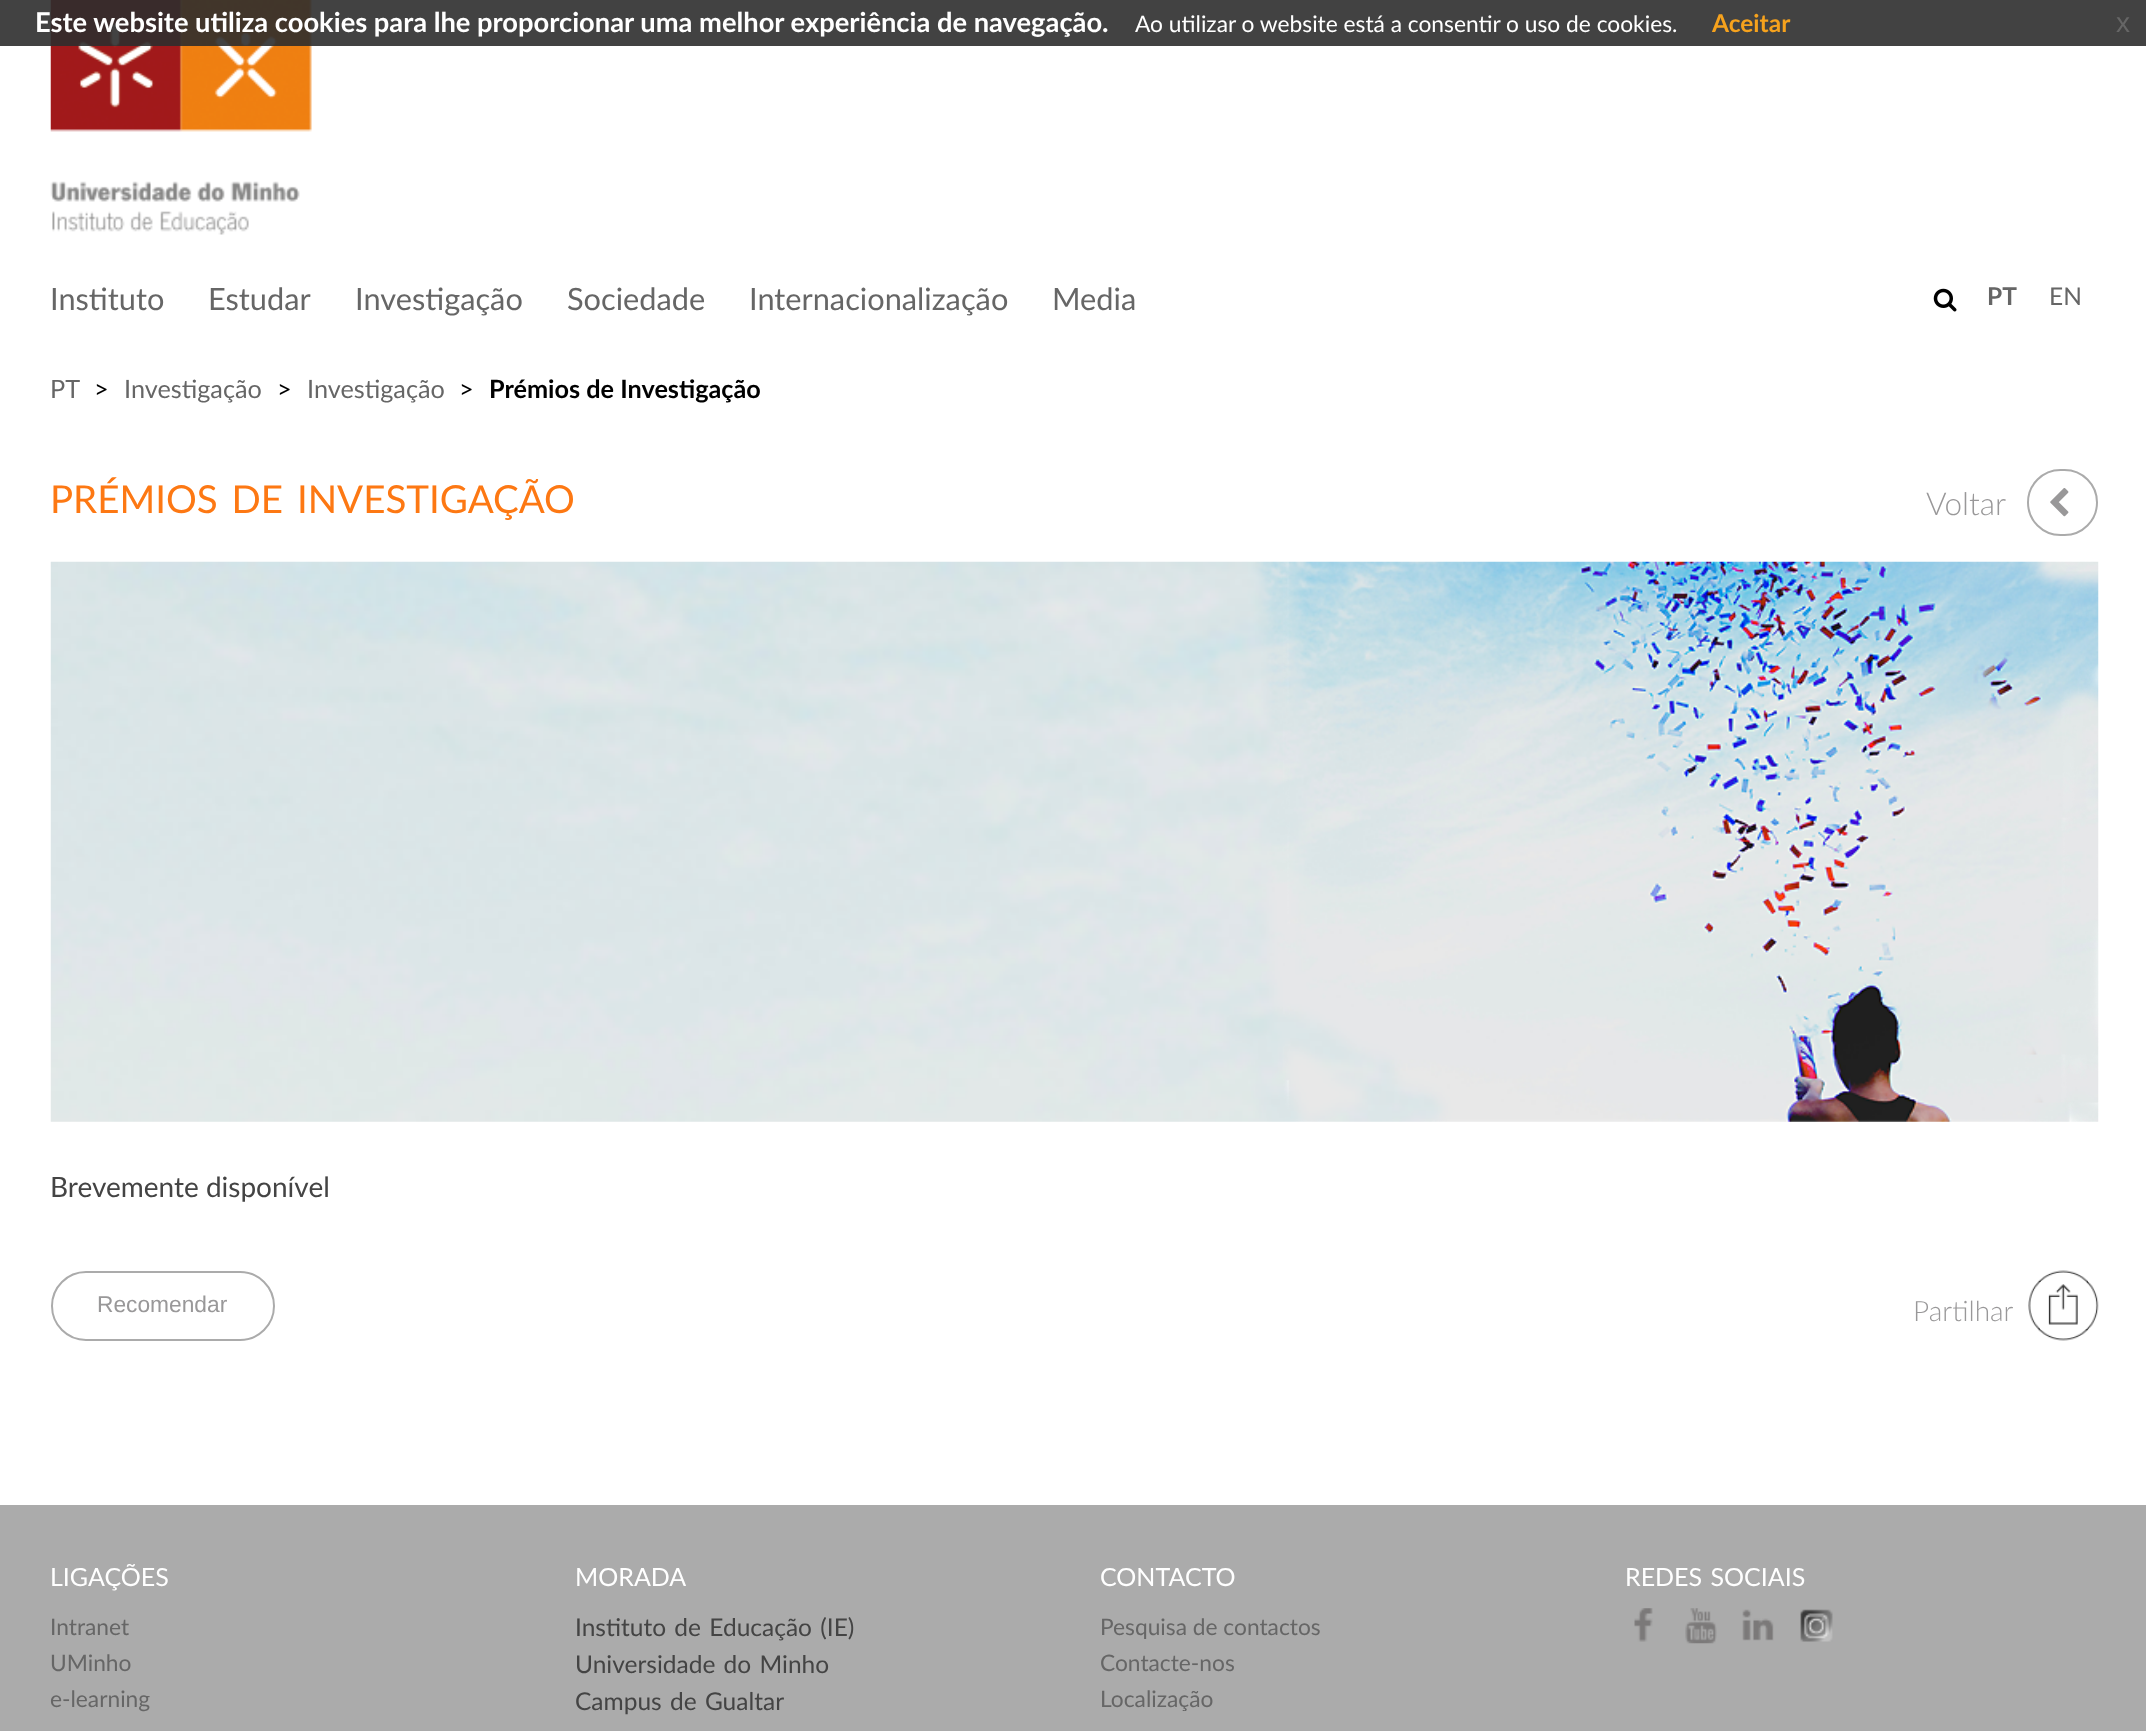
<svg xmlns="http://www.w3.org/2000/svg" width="2146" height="1731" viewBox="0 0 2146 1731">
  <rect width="100%" height="100%" fill="rgb(255,255,255)"/>
  <image x="50" y="0" width="262" height="235" href="pic1.png"/>
  <rect x="0" y="0" width="2146" height="46" fill="rgba(45,45,45,0.9)"/>
  <text x="35" y="32" font-family="Lato" font-size="27.3" font-weight="bold" fill="rgb(255,255,255)">Este website utiliza cookies para lhe proporcionar uma melhor experiência de navegação.</text>
  <text x="1135" y="32" font-family="Lato" font-size="22.75" fill="rgb(255,255,255)">Ao utilizar o website está a consentir o uso de cookies.</text>
  <text x="1712" y="32" font-family="Lato" font-size="24.5" font-weight="bold" fill="rgb(246,162,29)">Aceitar</text>
  <text x="2116" y="32" font-family="Liberation Sans" font-size="28" fill="rgb(102,102,102)">x</text>
  <g font-family="Lato" font-size="30.75" fill="rgb(102,102,102)">
    <text x="50" y="310">Instituto</text>
    <text x="208" y="310">Estudar</text>
    <text x="355" y="310">Investigação</text>
    <text x="567" y="310">Sociedade</text>
    <text x="749" y="310">Internacionalização</text>
    <text x="1052" y="310">Media</text>
  </g>
  <image x="1933" y="288" width="24" height="24" href="pic2.png"/>
  <text x="1987" y="305" font-family="Lato" font-size="24.5" font-weight="bold" fill="rgb(102,102,102)">PT</text>
  <text x="2049" y="305" font-family="Lato" font-size="24.5" fill="rgb(102,102,102)">EN</text>
  <text x="50" y="398" font-family="Lato" font-size="25.25" fill="rgb(102,102,102)">PT</text>
  <text x="94" y="398" font-family="Lato" font-size="25.25" fill="rgb(0,0,0)">&gt;</text>
  <text x="124" y="398" font-family="Lato" font-size="25.25" fill="rgb(102,102,102)">Investigação</text>
  <text x="277" y="398" font-family="Lato" font-size="25.25" fill="rgb(0,0,0)">&gt;</text>
  <text x="307" y="398" font-family="Lato" font-size="25.25" fill="rgb(102,102,102)">Investigação</text>
  <text x="459" y="398" font-family="Lato" font-size="25.25" fill="rgb(0,0,0)">&gt;</text>
  <text x="489" y="398" font-family="Lato" font-size="25.25" font-weight="bold" fill="rgb(0,0,0)">Prémios de Investigação</text>
  <text x="50" y="513" word-spacing="4" font-family="Lato" font-size="38.5" fill="rgb(253,120,19)">PRÉMIOS DE INVESTIGAÇÃO</text>
  <text x="1926" y="515" font-family="Lato" font-size="31.5" font-weight="300" fill="rgb(153,152,153)">Voltar</text>
  <rect x="2028" y="470" width="69" height="65" rx="32.5" fill="none" stroke="rgb(171,171,171)" stroke-width="2"/>
  <image x="2050" y="488" width="19" height="29" href="pic3.png"/>
  <image x="50" y="561" width="2049" height="561" href="pic4.png"/>
  <text x="50" y="1197" font-family="Lato" font-size="28" fill="rgb(68,68,68)">Brevemente disponível</text>
  <rect x="52" y="1272" width="222" height="68" rx="34" fill="none" stroke="rgb(171,171,171)" stroke-width="2"/>
  <text x="97" y="1312" font-family="Liberation Sans" font-size="22.75" fill="rgb(153,152,153)">Recomendar</text>
  <text x="1913" y="1321" font-family="Lato" font-size="28" font-weight="300" fill="rgb(153,152,153)">Partilhar</text>
  <image x="2028" y="1270" width="71" height="71" href="pic5.png"/>
  <rect x="0" y="1505" width="2146" height="226" fill="rgb(171,171,171)"/>
  <text x="50" y="1586" font-family="Lato" font-size="25" fill="rgb(255,255,255)">LIGAÇÕES</text>
  <g font-family="Lato" font-size="22.75" fill="rgb(102,102,102)">
    <text>
      <tspan x="50" y="1635">Intranet</tspan>
      <tspan x="50" y="1671">UMinho</tspan>
      <tspan x="50" y="1707">e-learning</tspan>
    </text>
  </g>
  <text x="575" y="1586" font-family="Lato" font-size="25" fill="rgb(255,255,255)">MORADA</text>
  <g font-family="Lato" font-size="24.5" fill="rgb(68,68,68)">
    <text>
      <tspan x="575" y="1636" word-spacing="2">Instituto de Educação (IE)</tspan>
      <tspan x="575" y="1673" word-spacing="2">Universidade do Minho</tspan>
      <tspan x="575" y="1710" word-spacing="2">Campus de Gualtar</tspan>
    </text>
  </g>
  <text x="1100" y="1586" font-family="Lato" font-size="25" fill="rgb(255,255,255)">CONTACTO</text>
  <g font-family="Lato" font-size="22.75" fill="rgb(102,102,102)">
    <text>
      <tspan x="1100" y="1635">Pesquisa de contactos</tspan>
      <tspan x="1100" y="1671">Contacte-nos</tspan>
      <tspan x="1100" y="1707">Localização</tspan>
    </text>
  </g>
  <text x="1625" y="1586" word-spacing="2" font-family="Lato" font-size="25" fill="rgb(255,255,255)">REDES SOCIAIS</text>
  <image x="1634" y="1608" width="19" height="34" href="pic6.png"/>
  <image x="1685" y="1608" width="32" height="36" href="pic7.png"/>
  <image x="1742" y="1609" width="32" height="32" href="pic8.png"/>
  <image x="1800" y="1609" width="33" height="33" href="pic9.png"/>
</svg>
